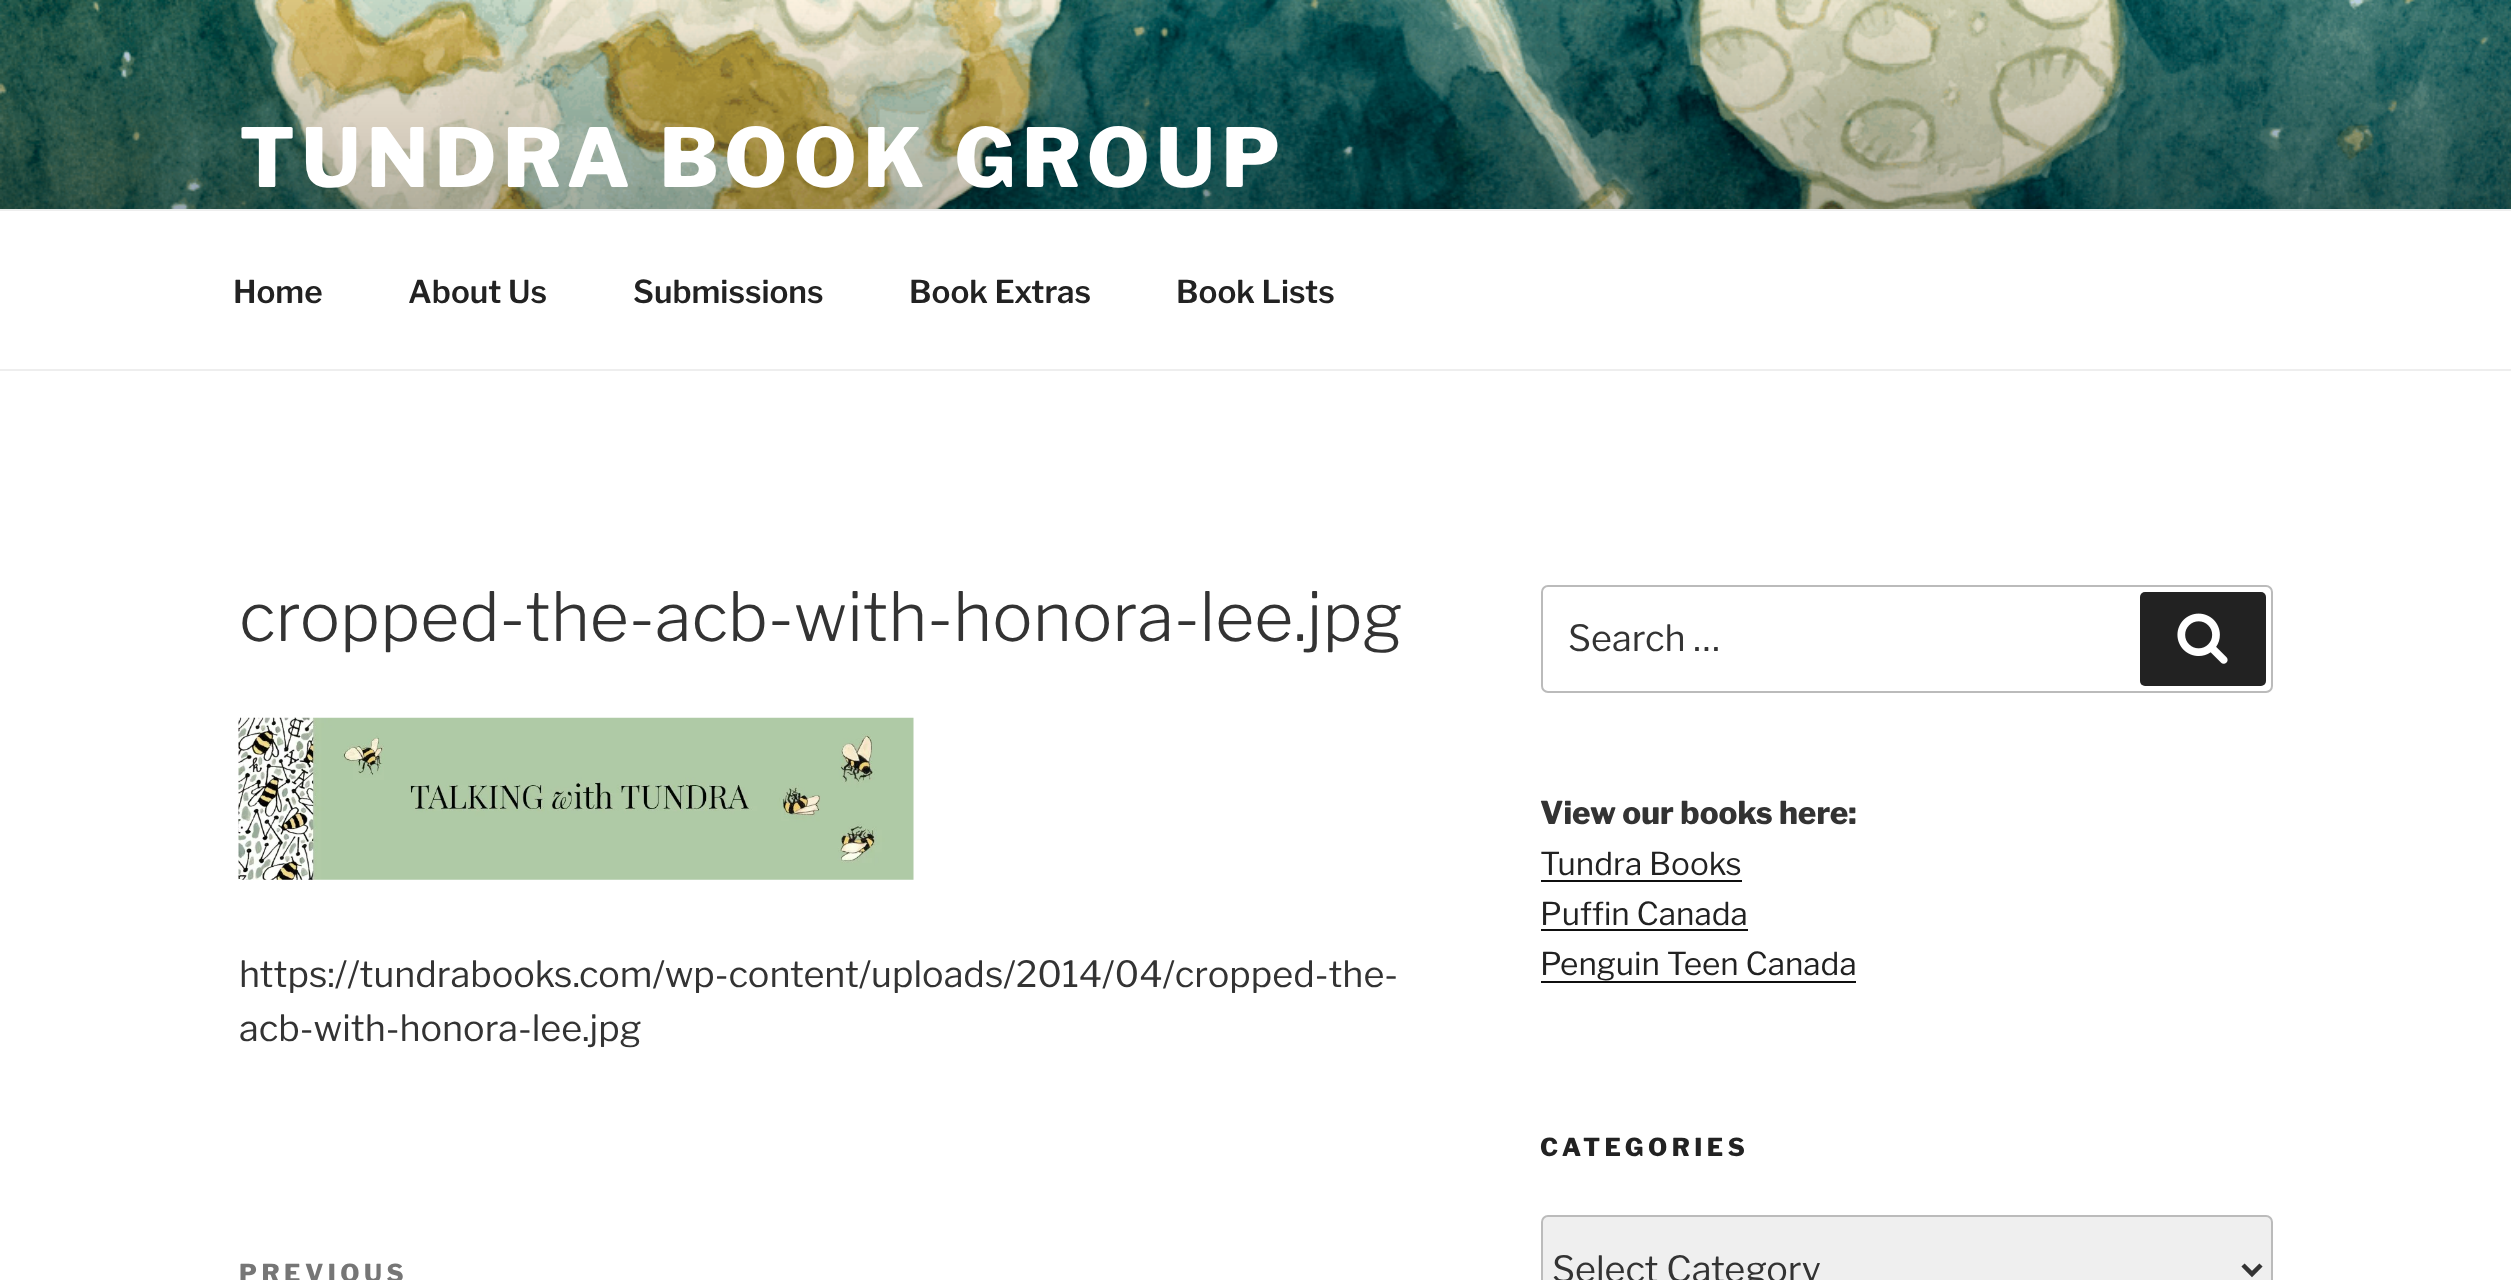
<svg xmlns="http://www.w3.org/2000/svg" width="2511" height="1280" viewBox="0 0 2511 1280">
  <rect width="100%" height="100%" fill="rgb(255,255,255)"/>
  <image x="0" y="0" width="2511" height="209" href="pic1.png"/>
  <text x="239" y="187" font-family="Libre Franklin" font-size="81" font-weight="100" letter-spacing="6.5" fill="rgb(255,255,255)">TUNDRA BOOK GROUP</text>
  <rect x="0" y="209" width="2511" height="2" fill="rgb(238,238,238)"/>
  <rect x="0" y="369" width="2511" height="2" fill="rgb(238,238,238)"/>
  <g font-family="'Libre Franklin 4'" font-size="31.5" font-weight="100" fill="rgb(34,34,34)">
    <text x="233" y="303">Home</text>
    <text x="408" y="303">About Us</text>
    <text x="633" y="303">Submissions</text>
    <text x="909" y="303">Book Extras</text>
    <text x="1176" y="303">Book Lists</text>
  </g>
  <text x="239" y="641" font-family="'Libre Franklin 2'" font-size="67.5" font-weight="100" fill="rgb(51,51,51)">cropped-the-acb-with-honora-lee.jpg</text>
  <image x="238" y="717" width="676" height="163" href="pic2.png"/>
  <g font-family="'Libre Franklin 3'" font-size="36" font-weight="100" fill="rgb(51,51,51)">
    <text>
      <tspan x="239" y="987">https://tundrabooks.com/wp-content/uploads/2014/04/cropped-the-</tspan>
      <tspan x="239" y="1041">acb-with-honora-lee.jpg</tspan>
    </text>
  </g>
  <text x="239" y="1282" font-family="Libre Franklin" font-size="24.75" font-weight="100" letter-spacing="4.5" fill="rgb(118,118,118)">PREVIOUS</text>
  <rect x="1542" y="586" width="730" height="106" rx="6" fill="none" stroke="rgb(187,187,187)" stroke-width="2"/>
  <text x="1568" y="651" font-family="'Libre Franklin 3'" font-size="36" font-weight="100" fill="rgb(51,51,51)">Search …</text>
  <rect x="2140" y="592" width="126" height="94" rx="5" fill="rgb(34,34,34)"/>
  <image x="2177" y="613" width="51" height="51" href="pic3.png"/>
  <text x="1540" y="824" font-family="Libre Franklin" font-size="31.5" font-weight="100" fill="rgb(51,51,51)">View our books here:</text>
  <text x="1540" y="875" font-family="'Libre Franklin 3'" font-size="31.5" font-weight="100" fill="rgb(34,34,34)">Tundra Books</text>
  <rect x="1541" y="880" width="201" height="2" fill="rgb(15,15,15)"/>
  <text x="1540" y="925" font-family="'Libre Franklin 3'" font-size="31.5" font-weight="100" fill="rgb(34,34,34)">Puffin Canada</text>
  <rect x="1541" y="929" width="207" height="2" fill="rgb(15,15,15)"/>
  <text x="1540" y="975" font-family="'Libre Franklin 3'" font-size="31.5" font-weight="100" fill="rgb(34,34,34)">Penguin Teen Canada</text>
  <rect x="1541" y="981" width="315" height="2" fill="rgb(15,15,15)"/>
  <text x="1540" y="1156" font-family="Libre Franklin" font-size="24.75" font-weight="100" letter-spacing="4.5" fill="rgb(34,34,34)">CATEGORIES</text>
  <rect x="1542" y="1216" width="730" height="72" rx="6" fill="rgb(239,239,239)" stroke="rgb(187,187,187)" stroke-width="2"/>
  <path d="M2243 1265L2252 1274L2261 1265" fill="none" stroke="rgb(51,51,51)" stroke-width="4.5"/>
  <text x="1552" y="1282" font-family="'Libre Franklin 3'" font-size="36" font-weight="100" fill="rgb(51,51,51)">Select Category</text>
</svg>
